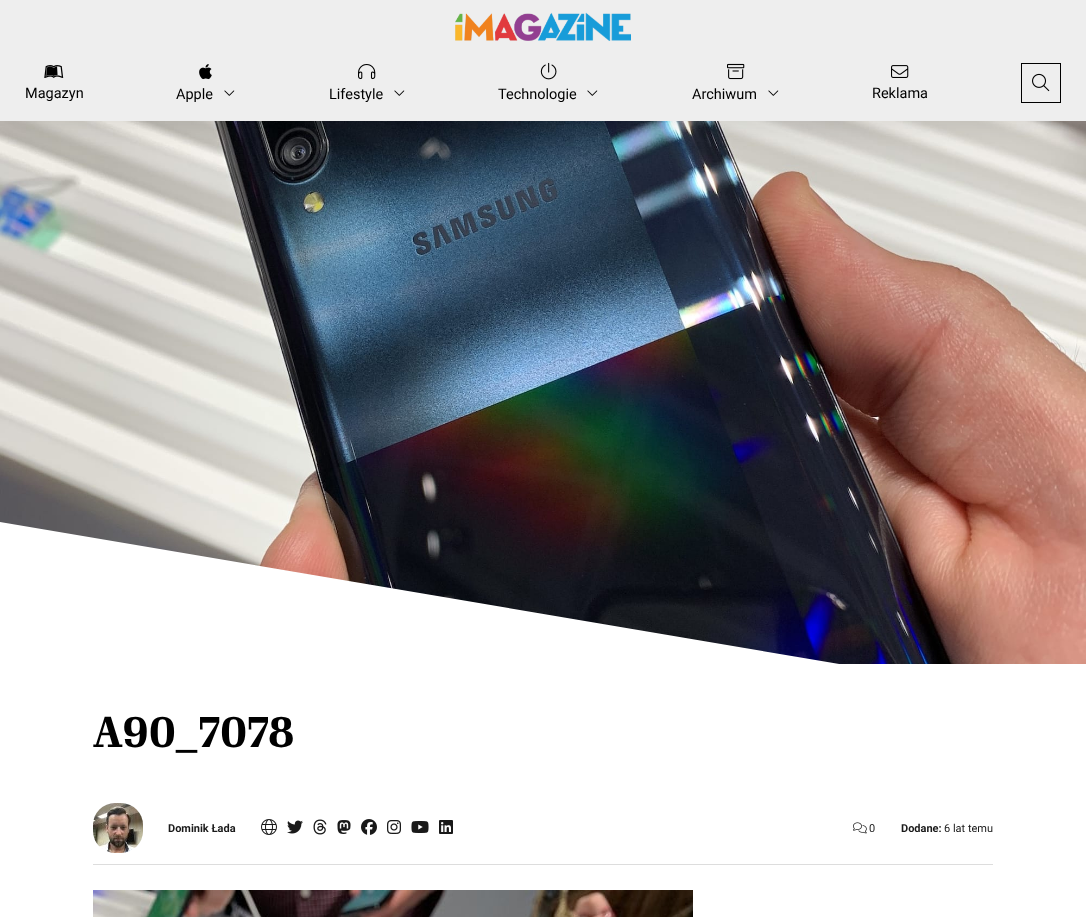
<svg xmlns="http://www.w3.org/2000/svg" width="1086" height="917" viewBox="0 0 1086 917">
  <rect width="100%" height="100%" fill="rgb(255,255,255)"/>
  <image x="0" y="121" width="1086" height="543" href="pic10.png"/>
  <rect x="10" y="20" width="1066" height="101" fill="rgba(0,0,0,0.1)" filter="blur(15px)"/>
  <rect x="0" y="0" width="1086" height="121" fill="rgb(238,238,238)"/>
  <image x="455" y="12" width="176" height="29" href="pic1.png"/>
  <image x="44" y="65" width="20" height="13" href="pic2.png"/>
  <text x="25" y="98" font-family="Roboto" font-size="14.5" fill="rgb(0,0,0)">Magazyn</text>
  <image x="199" y="64" width="13" height="16" href="pic3.png"/>
  <text x="176" y="99" font-family="Roboto" font-size="14.5" fill="rgb(0,0,0)">Apple</text>
  <image x="224" y="90" width="11" height="6" href="pic4.png"/>
  <image x="358" y="64" width="18" height="16" href="pic5.png"/>
  <text x="329" y="99" font-family="Roboto" font-size="14.5" fill="rgb(0,0,0)">Lifestyle</text>
  <image x="394" y="90" width="11" height="6" href="pic4.png"/>
  <image x="540" y="62" width="17" height="18" href="pic6.png"/>
  <text x="498" y="99" font-family="Roboto" font-size="14.5" fill="rgb(0,0,0)">Technologie</text>
  <image x="587" y="90" width="11" height="6" href="pic4.png"/>
  <image x="727" y="63" width="18" height="17" href="pic7.png"/>
  <text x="692" y="99" font-family="Roboto" font-size="14.5" fill="rgb(0,0,0)">Archiwum</text>
  <image x="768" y="90" width="11" height="6" href="pic4.png"/>
  <image x="891" y="65" width="18" height="13" href="pic8.png"/>
  <text x="872" y="98" font-family="Roboto" font-size="14.5" fill="rgb(0,0,0)">Reklama</text>
  <rect x="1021.5" y="63.5" width="39" height="39" fill="none" stroke="rgb(0,0,0)"/>
  <image x="1032" y="73" width="18" height="19" href="pic9.png"/>
  <path d="M0 522V669H869Z" fill="rgb(255,255,255)"/>
  <g font-family="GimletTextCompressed" font-size="42" font-weight="bold" fill="rgb(0,0,0)">
    <text x="93" y="747">A90</text>
    <text x="198" y="747">7078</text>
  </g>
  <text x="176" y="747" font-family="Liberation Serif" font-size="42" font-weight="bold" fill="rgb(0,0,0)">_</text>
  <rect x="93" y="864" width="900" height="1" fill="rgb(221,221,221)"/>
  <image x="93" y="803" width="50" height="50" href="pic11.png"/>
  <text x="168" y="832" font-family="Roboto" font-size="11" font-weight="bold" fill="rgb(26,26,26)">Dominik Łada</text>
  <image x="261" y="819" width="16" height="16" href="pic12.png"/>
  <image x="287" y="820" width="16" height="14" href="pic13.png"/>
  <image x="313" y="819" width="14" height="16" href="pic14.png"/>
  <image x="337" y="820" width="14" height="14" href="pic15.png"/>
  <image x="361" y="819" width="16" height="16" href="pic16.png"/>
  <image x="387" y="820" width="14" height="14" href="pic17.png"/>
  <image x="411" y="821" width="18" height="12" href="pic18.png"/>
  <image x="439" y="820" width="14" height="14" href="pic19.png"/>
  <image x="853" y="822" width="14" height="12" href="pic20.png"/>
  <text x="869" y="832" font-family="Roboto" font-size="11" fill="rgb(26,26,26)">0</text>
  <text x="901" y="832" font-family="Roboto" font-size="11" font-weight="bold" fill="rgb(26,26,26)">Dodane:</text>
  <text x="944" y="832" font-family="Roboto" font-size="11" fill="rgb(26,26,26)">6 lat temu</text>
  <image x="93" y="890" width="600" height="27" href="pic21.png"/>
</svg>
